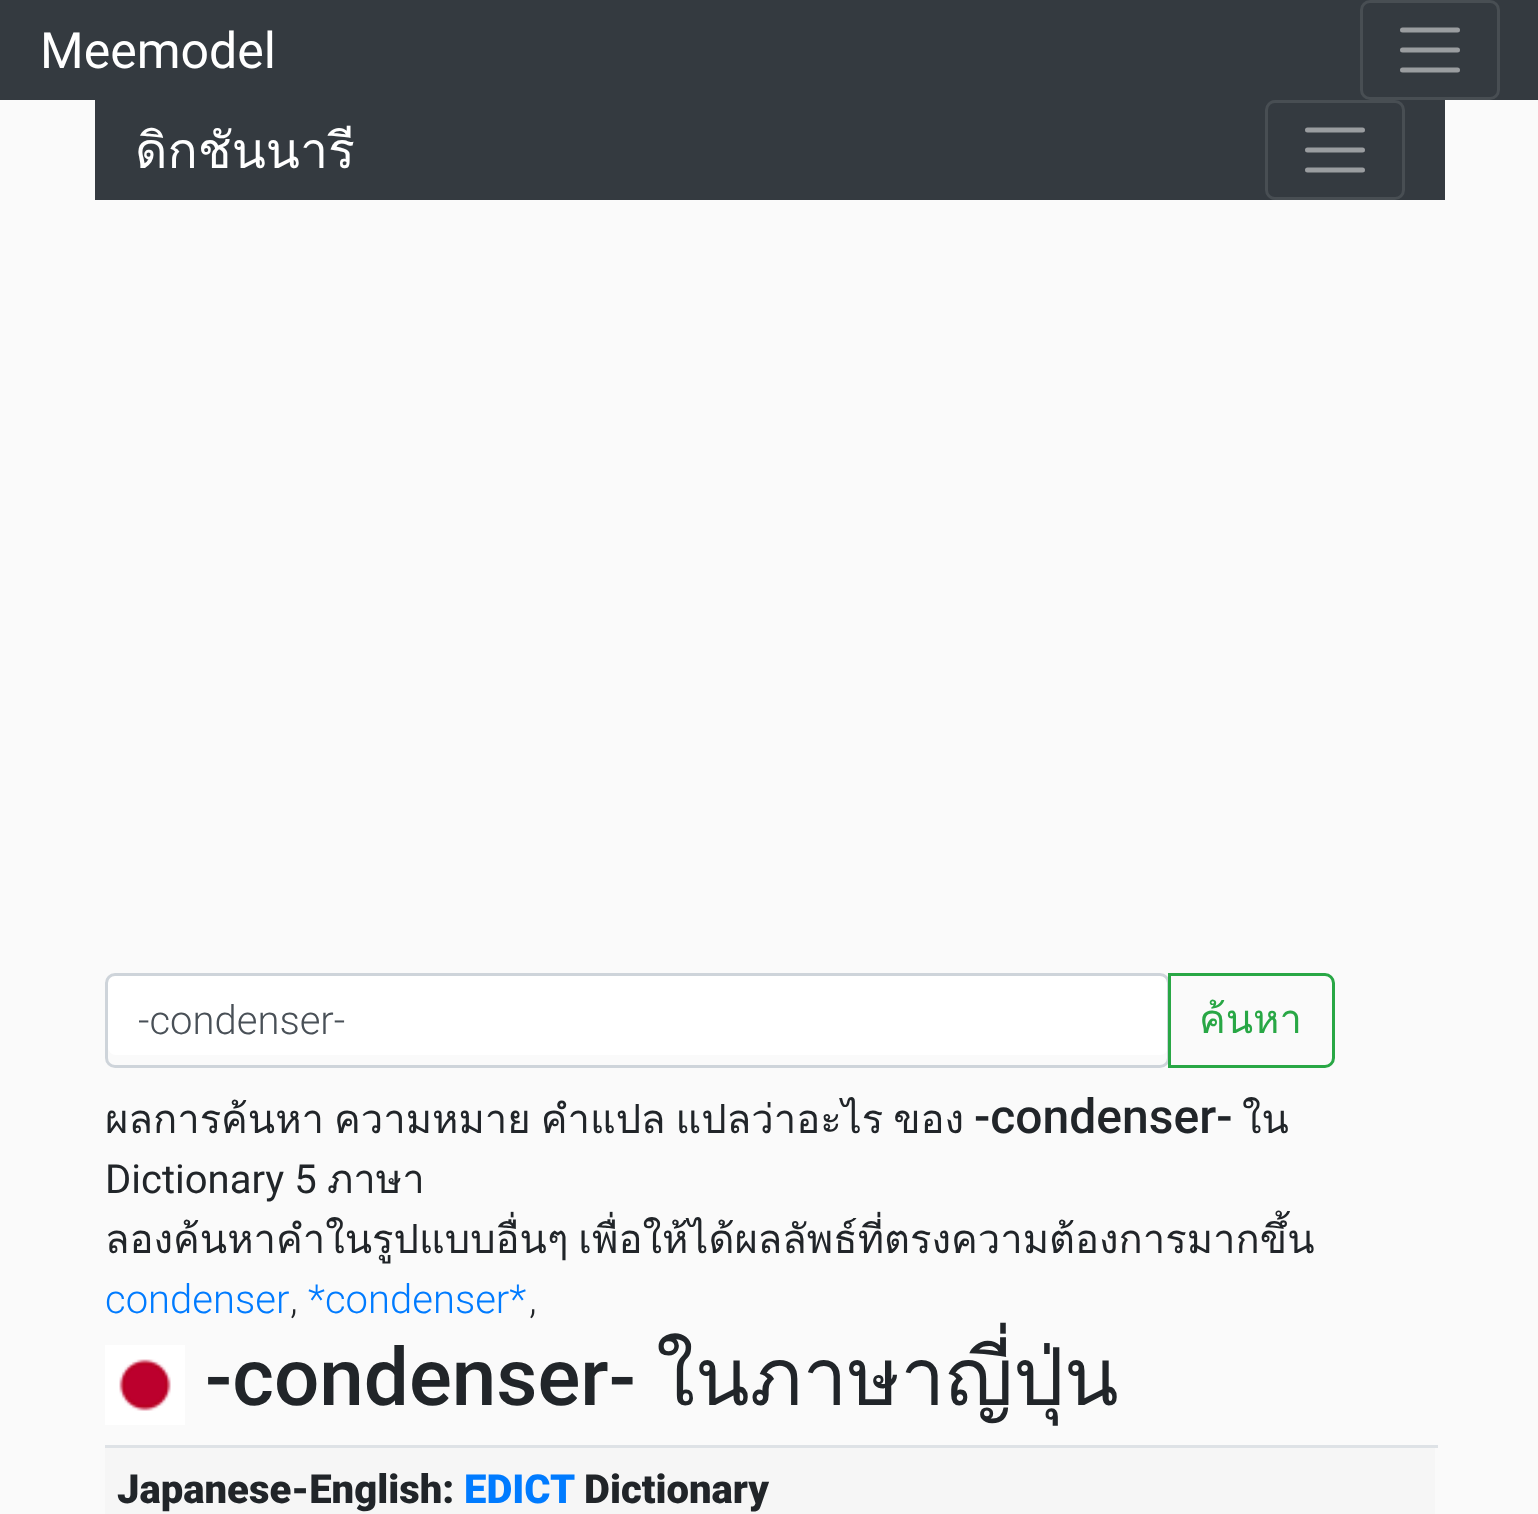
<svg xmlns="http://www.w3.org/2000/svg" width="1538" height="1514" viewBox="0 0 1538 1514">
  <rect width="100%" height="100%" fill="rgb(250,250,250)"/>
  <rect x="0" y="0" width="1538" height="100" fill="rgb(52,58,64)"/>
  <text x="40" y="68" font-family="Roboto" font-size="50" fill="rgb(255,255,255)">Meemodel</text>
  <rect x="1361.5" y="1.5" width="137" height="97" rx="8.5" fill="none" stroke="rgb(72,78,83)" stroke-width="3"/>
  <path d="M1402.5 30H1457.5M1402.5 50H1457.5M1402.5 70H1457.5" fill="none" stroke="rgb(154,157,160)" stroke-width="5" stroke-linecap="round"/>
  <rect x="95" y="100" width="1350" height="100" fill="rgb(52,58,64)"/>
  <text x="135" y="168" font-family="Loma" font-size="50" fill="rgb(255,255,255)">ดิกชันนารี</text>
  <rect x="1266.5" y="101.5" width="137" height="97" rx="8.5" fill="none" stroke="rgb(72,78,83)" stroke-width="3"/>
  <path d="M1307.5 130H1362.5M1307.5 150H1362.5M1307.5 170H1362.5" fill="none" stroke="rgb(154,157,160)" stroke-width="5" stroke-linecap="round"/>
  <rect x="108" y="975" width="1060" height="80" rx="8" fill="rgb(255,255,255)"/>
  <rect x="106.5" y="974.5" width="1062" height="92" rx="8.5" fill="none" stroke="rgb(206,212,218)" stroke-width="3"/>
  <text x="138" y="1034" font-family="Roboto" font-size="40" font-weight="300" fill="rgb(73,80,87)">-condenser-</text>
  <path d="M1169.5 974.5H1325C1329.5 974.5 1333.5 978.5 1333.5 983V1058C1333.5 1062.5 1329.5 1066.5 1325 1066.5H1169.5Z" fill="none" stroke="rgb(40,167,69)" stroke-width="3"/>
  <text x="1199" y="1033" font-family="Loma" font-size="40" fill="rgb(40,167,69)">ค้นหา</text>
  <text x="105" y="1133" word-spacing="-3.5" font-family="Loma" font-size="40" fill="rgb(33,37,41)">ผลการค้นหา ความหมาย คำแปล แปลว่าอะไร ของ</text>
  <text x="974" y="1133" font-family="Roboto" font-size="48" font-weight="500" fill="rgb(33,37,41)">-condenser-</text>
  <text x="1242" y="1133" font-family="Loma" font-size="40" fill="rgb(33,37,41)">ใน</text>
  <text x="105" y="1193" font-family="Roboto" font-size="40" fill="rgb(33,37,41)">Dictionary 5</text>
  <g font-family="Loma" font-size="40" fill="rgb(33,37,41)">
    <text x="327" y="1193">ภาษา</text>
    <text x="105" y="1253" word-spacing="-3.5">ลองค้นหาคำในรูปแบบอื่นๆ เพื่อให้ได้ผลลัพธ์ที่ตรงความต้องการมากขึ้น</text>
  </g>
  <text x="105" y="1313" font-family="Roboto" font-size="40" font-weight="300" fill="rgb(0,123,255)">condenser</text>
  <text x="290" y="1313" font-family="Roboto" font-size="40" font-weight="300" fill="rgb(33,37,41)">,</text>
  <text x="308" y="1313" font-family="Roboto" font-size="40" font-weight="300" fill="rgb(0,123,255)">*condenser*</text>
  <text x="529" y="1313" font-family="Roboto" font-size="40" font-weight="300" fill="rgb(33,37,41)">,</text>
  <image x="105" y="1345" width="80" height="80" href="pic1.png"/>
  <text x="205" y="1405" font-family="Roboto" font-size="80" font-weight="500" fill="rgb(33,37,41)">-condenser-</text>
  <text x="656" y="1405" font-family="Loma" font-size="80" fill="rgb(33,37,41)">ในภาษาญี่ปุ่น</text>
  <rect x="105" y="1448" width="1330" height="66" fill="rgb(246,246,246)"/>
  <rect x="105" y="1445" width="1333" height="3" fill="rgb(222,226,230)"/>
  <text x="117" y="1503" font-family="Roboto" font-size="40" font-weight="900" fill="rgb(33,37,41)">Japanese-English:</text>
  <text x="464" y="1503" font-family="Roboto" font-size="40" font-weight="900" fill="rgb(0,123,255)">EDICT</text>
  <text x="584" y="1503" font-family="Roboto" font-size="40" font-weight="900" fill="rgb(33,37,41)">Dictionary</text>
</svg>
